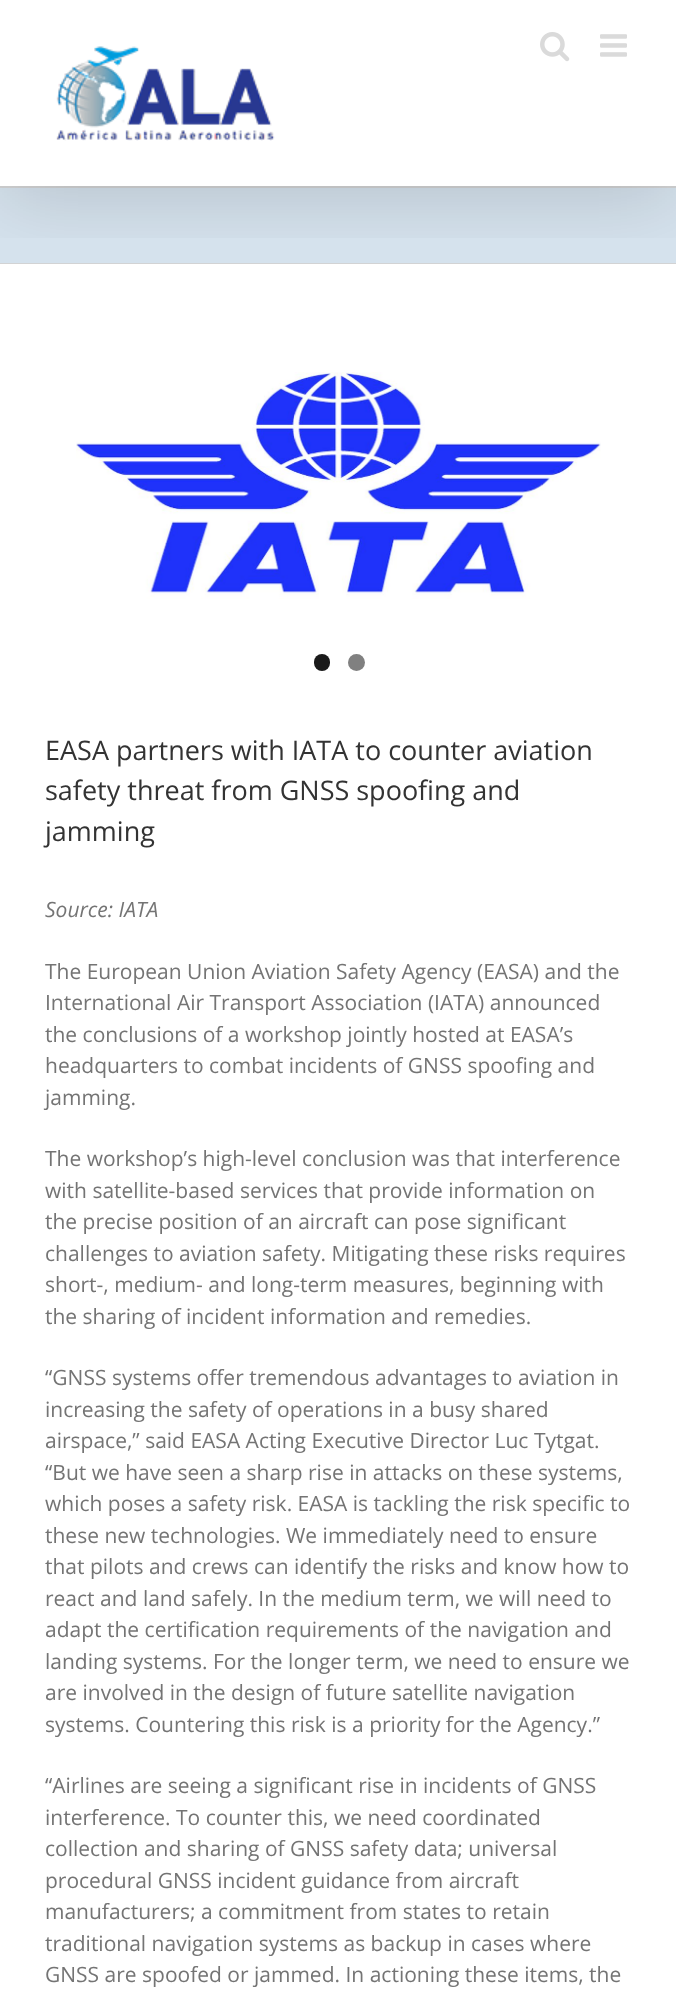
async function draw(canvas) {
  canvas.width = 676
  canvas.height = 2002
  const ctx = canvas.getContext('2d')
  ctx.miterLimit = 4
  ctx.fontKerning = 'normal'
  async function loadImage(src) {
    const img = new Image()
    img.src = src
    await img.decode()
    return img
  }

  ctx.fillStyle = '#fff'
  ctx.fillRect(0, 0, 676, 2002)
  ctx.fillStyle = '#d5e2ed'
  ctx.fillRect(0, 188, 676, 75)
  ctx.fillStyle = '#d2d3d4'
  ctx.fillRect(0, 186, 676, 2)
  ctx.fillRect(0, 263, 676, 1)
  ctx.save()
  ctx.beginPath()
  ctx.rect(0, 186, 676, 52)
  ctx.clip()
  ctx.fillStyle = '#00000024'
  ctx.filter = 'blur(37.5px)'
  ctx.beginPath()
  ctx.rect(3, 18, 671, 180)
  ctx.fill()
  ctx.filter = 'none'
  ctx.restore()
  ctx.drawImage(await loadImage('image0.png'), 56, 46, 219, 95)
  ctx.drawImage(await loadImage('image1.png'), 540, 32, 30, 30)
  ctx.drawImage(await loadImage('image2.png'), 600, 34, 27, 23)
  ctx.drawImage(await loadImage('image3.png'), 76, 372, 525, 227)
  ctx.fillStyle = '#1a1a1a'
  ctx.beginPath()
  ctx.roundRect(314, 654, 16, 17, 8)
  ctx.fill()
  ctx.fillStyle = '#808080'
  ctx.beginPath()
  ctx.arc(356.5, 662.5, 8.5, 0, 2 * Math.PI)
  ctx.fill()
  ctx.font = '27px Open Sans'
  ctx.fillStyle = '#333'
  ctx.fillText('EASA partners with IATA to counter aviation', 45, 760)
  ctx.fillText('safety threat from GNSS spoofing and', 45, 800)
  ctx.fillText('jamming', 45, 841)
  ctx.font = 'italic 21px Open Sans'
  ctx.fillStyle = '#747474'
  ctx.fillText('Source: IATA', 45, 917)
  ctx.font = '21px Open Sans'
  ctx.fillText('The European Union Aviation Safety Agency (EASA) and the', 45, 979)
  ctx.fillText('International Air Transport Association (IATA) announced', 45, 1010)
  ctx.fillText('the conclusions of a workshop jointly hosted at EASA’s', 45, 1042)
  ctx.fillText('headquarters to combat incidents of GNSS spoofing and', 45, 1073)
  ctx.fillText('jamming.', 45, 1105)
  ctx.fillText('The workshop’s high-level conclusion was that interference', 45, 1166)
  ctx.fillText('with satellite-based services that provide information on', 45, 1198)
  ctx.fillText('the precise position of an aircraft can pose significant', 45, 1229)
  ctx.fillText('challenges to aviation safety. Mitigating these risks requires', 45, 1261)
  ctx.fillText('short-, medium- and long-term measures, beginning with', 45, 1292)
  ctx.fillText('the sharing of incident information and remedies.', 45, 1324)
  ctx.fillText('“GNSS systems offer tremendous advantages to aviation in', 45, 1385)
  ctx.fillText('increasing the safety of operations in a busy shared', 45, 1417)
  ctx.fillText('airspace,” said EASA Acting Executive Director Luc Tytgat.', 45, 1448)
  ctx.fillText('“But we have seen a sharp rise in attacks on these systems,', 45, 1480)
  ctx.fillText('which poses a safety risk. EASA is tackling the risk specific to', 45, 1511)
  ctx.fillText('these new technologies. We immediately need to ensure', 45, 1543)
  ctx.fillText('that pilots and crews can identify the risks and know how to', 45, 1574)
  ctx.fillText('react and land safely. In the medium term, we will need to', 45, 1606)
  ctx.fillText('adapt the certification requirements of the navigation and', 45, 1637)
  ctx.fillText('landing systems. For the longer term, we need to ensure we', 45, 1669)
  ctx.fillText('are involved in the design of future satellite navigation', 45, 1700)
  ctx.fillText('systems. Countering this risk is a priority for the Agency.”', 45, 1732)
  ctx.fillText('“Airlines are seeing a significant rise in incidents of GNSS', 45, 1793)
  ctx.fillText('interference. To counter this, we need coordinated', 45, 1825)
  ctx.fillText('collection and sharing of GNSS safety data; universal', 45, 1856)
  ctx.fillText('procedural GNSS incident guidance from aircraft', 45, 1888)
  ctx.fillText('manufacturers; a commitment from states to retain', 45, 1919)
  ctx.fillText('traditional navigation systems as backup in cases where', 45, 1951)
  ctx.fillText('GNSS are spoofed or jammed. In actioning these items, the', 45, 1982)
}

draw(document.querySelector('canvas'))
